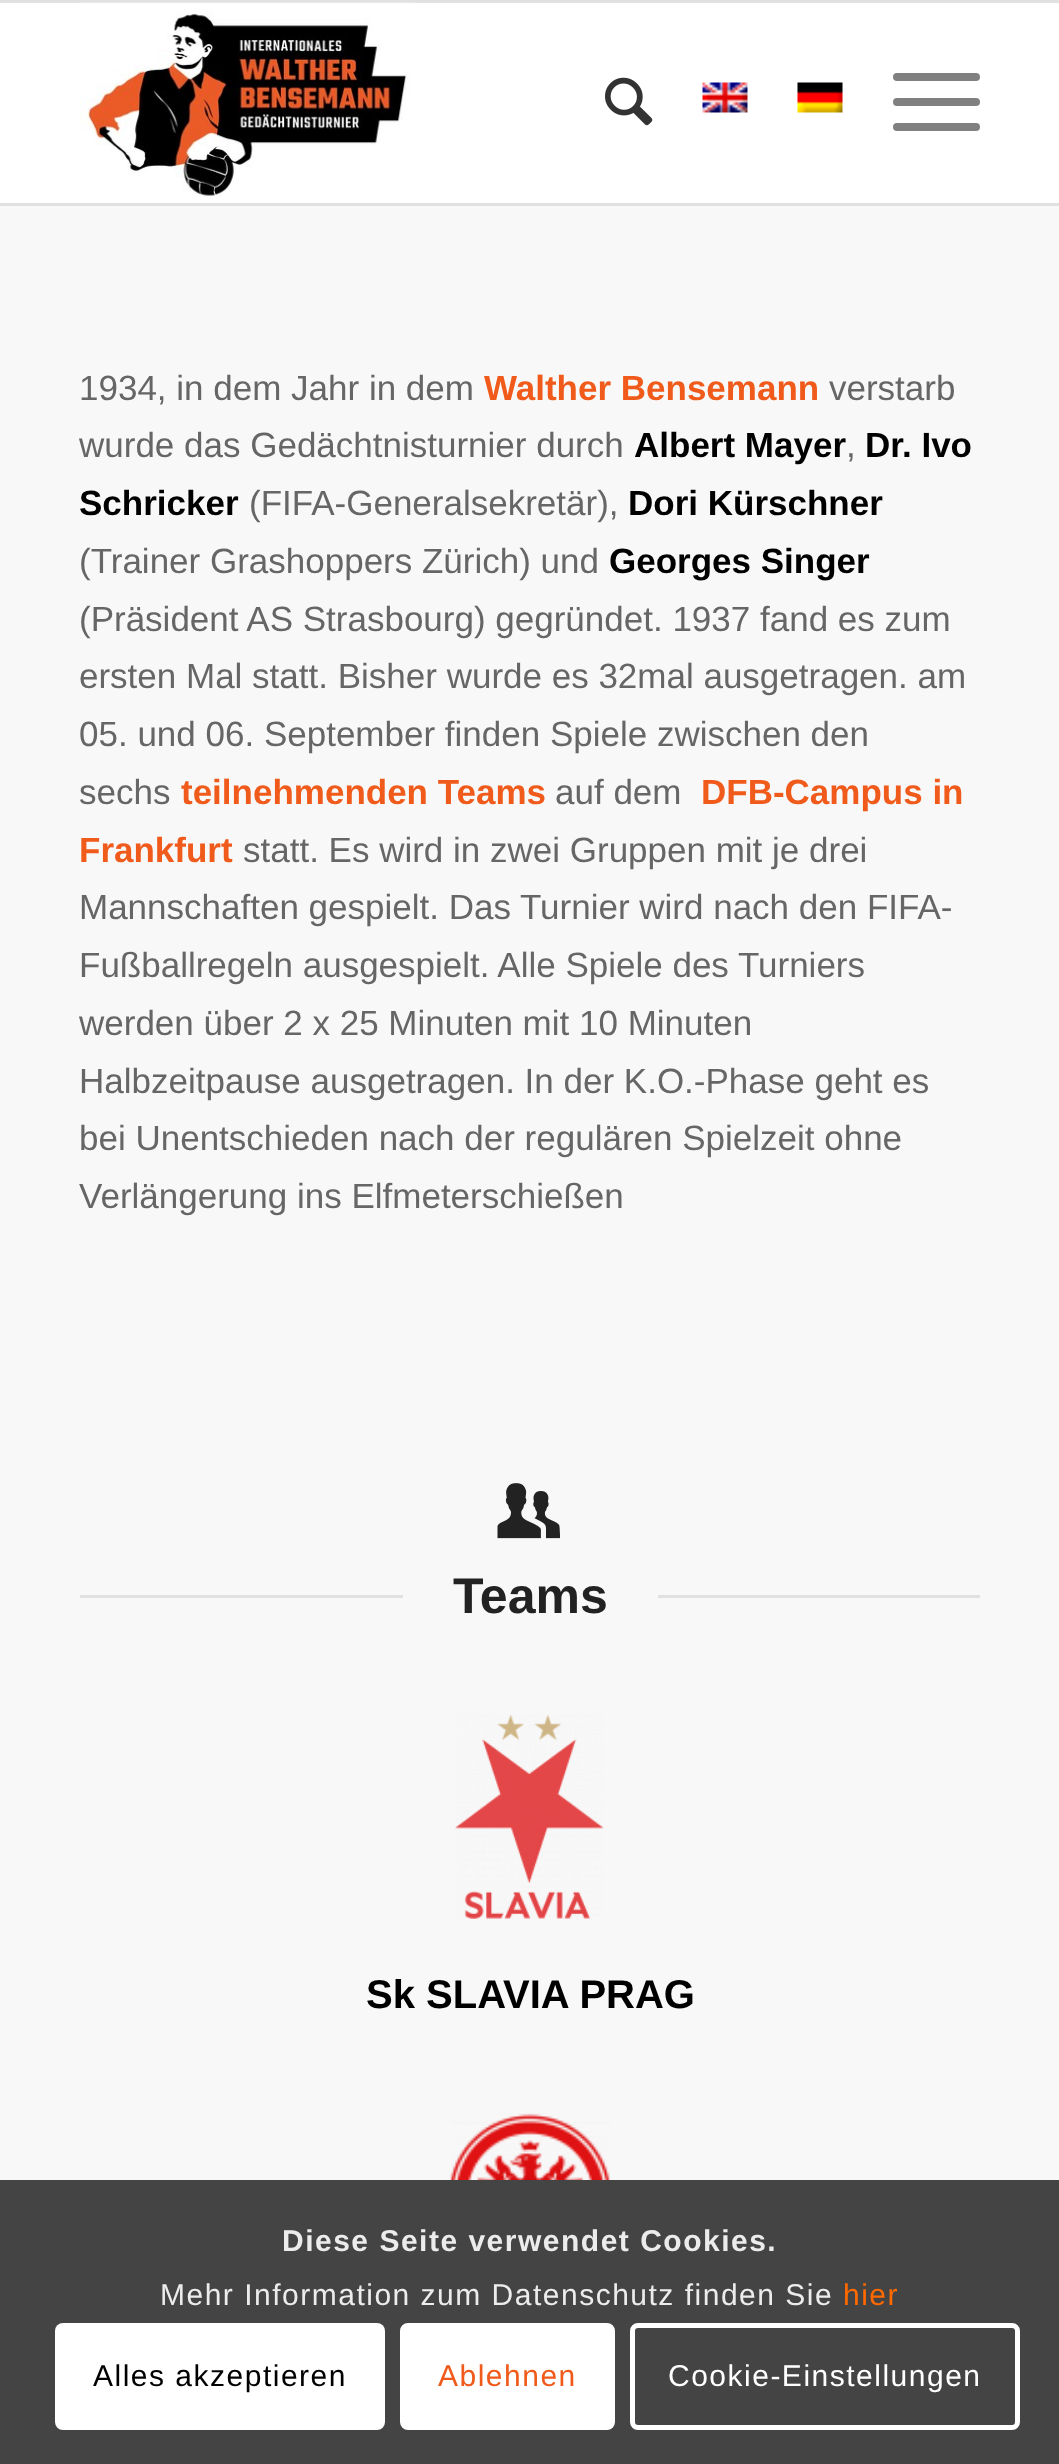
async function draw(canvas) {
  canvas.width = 1059
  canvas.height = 2464
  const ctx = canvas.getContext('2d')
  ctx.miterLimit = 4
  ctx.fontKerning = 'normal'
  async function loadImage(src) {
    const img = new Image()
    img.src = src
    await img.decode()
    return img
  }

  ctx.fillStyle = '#f8f8f8'
  ctx.fillRect(0, 0, 1059, 2464)
  ctx.fillStyle = '#e1e1e1'
  ctx.fillRect(0, 0, 1059, 3)
  ctx.fillRect(0, 203, 1059, 3)
  ctx.fillStyle = '#fff'
  ctx.fillRect(0, 3, 1059, 200)
  ctx.drawImage(await loadImage('image0.png'), 80, 2, 335, 195)
  ctx.drawImage(await loadImage('image1.png'), 605, 77, 48, 49)
  ctx.drawImage(await loadImage('image2.png'), 702, 82, 46, 31)
  ctx.drawImage(await loadImage('image3.png'), 797, 82, 46, 31)
  ctx.fillStyle = '#808080'
  ctx.beginPath()
  ctx.roundRect(893, 98, 87, 8, 4)
  ctx.fill()
  ctx.beginPath()
  ctx.roundRect(893, 73, 87, 8, 4)
  ctx.fill()
  ctx.beginPath()
  ctx.roundRect(893, 123, 87, 8, 4)
  ctx.fill()
  ctx.font = '35px Liberation Sans'
  ctx.fillStyle = '#666'
  ctx.fillText('1934, in dem Jahr in dem', 79, 400)
  ctx.font = 'bold 35px Liberation Sans'
  ctx.fillStyle = '#f05a1a'
  ctx.fillText('Walther Bensemann', 484, 400)
  ctx.font = '35px Liberation Sans'
  ctx.fillStyle = '#666'
  ctx.fillText('verstarb', 829, 400)
  ctx.fillText('wurde das Gedächtnisturnier durch', 79, 457)
  ctx.font = 'bold 35px Liberation Sans'
  ctx.fillStyle = '#000'
  ctx.fillText('Albert Mayer', 634, 457)
  ctx.font = '35px Liberation Sans'
  ctx.fillStyle = '#666'
  ctx.fillText(',', 846, 457)
  ctx.font = 'bold 35px Liberation Sans'
  ctx.fillStyle = '#000'
  ctx.fillText('Dr. Ivo', 865, 457)
  ctx.fillText('Schricker', 79, 515)
  ctx.font = '35px Liberation Sans'
  ctx.fillStyle = '#666'
  ctx.fillText('(FIFA-Generalsekretär),', 249, 515)
  ctx.font = 'bold 35px Liberation Sans'
  ctx.fillStyle = '#000'
  ctx.fillText('Dori Kürschner', 628, 515)
  ctx.font = '35px Liberation Sans'
  ctx.fillStyle = '#666'
  ctx.fillText('(Trainer Grashoppers Zürich) und', 79, 573)
  ctx.font = 'bold 35px Liberation Sans'
  ctx.fillStyle = '#000'
  ctx.fillText('Georges Singer', 609, 573)
  ctx.font = '35px Liberation Sans'
  ctx.fillStyle = '#666'
  ctx.fillText('(Präsident AS Strasbourg) gegründet. 1937 fand es zum', 79, 631)
  ctx.fillText('ersten Mal statt. Bisher wurde es 32mal ausgetragen. am', 79, 688)
  ctx.fillText('05. und 06. September finden Spiele zwischen den', 79, 746)
  ctx.fillText('sechs', 79, 804)
  ctx.font = 'bold 35px Liberation Sans'
  ctx.fillStyle = '#f05a1a'
  ctx.fillText('teilnehmenden Teams', 181, 804)
  ctx.font = '35px Liberation Sans'
  ctx.fillStyle = '#666'
  ctx.fillText('auf dem', 555, 804)
  ctx.font = 'bold 35px Liberation Sans'
  ctx.fillStyle = '#f05a1a'
  ctx.fillText('DFB-Campus in', 701, 804)
  ctx.fillText('Frankfurt', 79, 862)
  ctx.font = '35px Liberation Sans'
  ctx.fillStyle = '#666'
  ctx.fillText('statt. Es wird in zwei Gruppen mit je drei', 243, 862)
  ctx.fillText('Mannschaften gespielt. Das Turnier wird nach den FIFA-', 79, 919)
  ctx.fillText('Fußballregeln ausgespielt. Alle Spiele des Turniers', 79, 977)
  ctx.fillText('werden über 2 x 25 Minuten mit 10 Minuten', 79, 1035)
  ctx.fillText('Halbzeitpause ausgetragen. In der K.O.-Phase geht es', 79, 1093)
  ctx.fillText('bei Unentschieden nach der regulären Spielzeit ohne', 79, 1150)
  ctx.fillText('Verlängerung ins Elfmeterschießen', 79, 1208)
  ctx.drawImage(await loadImage('image4.png'), 497, 1483, 63, 56)
  ctx.fillStyle = '#e1e1e1'
  ctx.fillRect(80, 1595, 323, 3)
  ctx.font = 'bold 50px Liberation Sans'
  ctx.fillStyle = '#222'
  ctx.fillText('Teams', 453, 1613)
  ctx.fillStyle = '#e1e1e1'
  ctx.fillRect(658, 1595, 322, 3)
  ctx.drawImage(await loadImage('image5.png'), 455, 1714, 149, 205)
  ctx.font = 'bold 40px Liberation Sans'
  ctx.fillStyle = '#000'
  ctx.fillText('Sk SLAVIA PRAG', 366, 2008)
  ctx.drawImage(await loadImage('image6.png'), 450, 2113, 161, 67)
  ctx.fillStyle = '#444'
  ctx.fillRect(0, 2180, 1059, 284)
  ctx.letterSpacing = '1.5px'
  ctx.font = 'bold 30px Liberation Sans'
  ctx.fillStyle = '#ececec'
  ctx.fillText('Diese Seite verwendet Cookies.', 282, 2251)
  ctx.font = '30px Liberation Sans'
  ctx.fillText('Mehr Information zum Datenschutz finden Sie', 160, 2305)
  ctx.fillStyle = '#ff6900'
  ctx.fillText('hier', 843, 2305)
  ctx.fillStyle = '#fff'
  ctx.beginPath()
  ctx.roundRect(55, 2323, 330, 107, 8)
  ctx.fill()
  ctx.fillStyle = '#000'
  ctx.fillText('Alles akzeptieren', 93, 2386)
  ctx.fillStyle = '#fff'
  ctx.beginPath()
  ctx.roundRect(402.5, 2325.5, 210, 102, 5.5)
  ctx.fill()
  ctx.strokeStyle = '#fff'
  ctx.lineWidth = 5
  ctx.stroke()
  ctx.fillStyle = '#f05a1a'
  ctx.fillText('Ablehnen', 438, 2386)
  ctx.beginPath()
  ctx.roundRect(632.5, 2325.5, 385, 102, 5.5)
  ctx.stroke()
  ctx.fillStyle = '#fff'
  ctx.fillText('Cookie-Einstellungen', 668, 2386)
}

draw(document.querySelector('canvas'))
